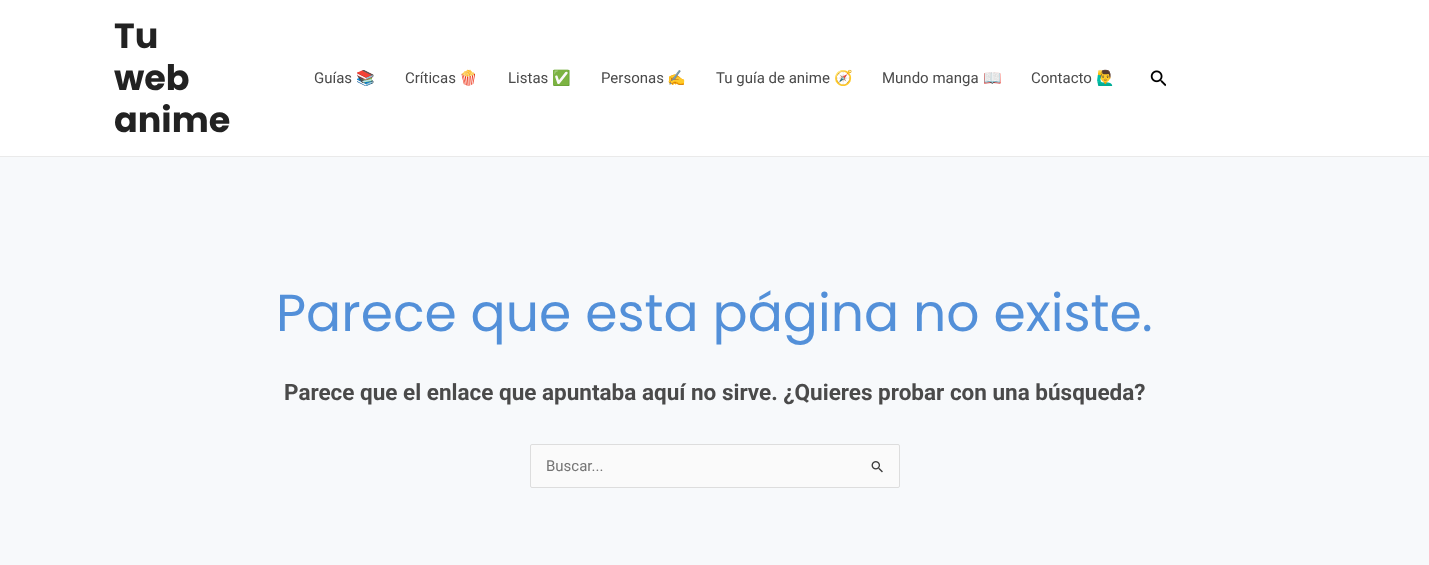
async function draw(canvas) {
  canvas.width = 1429
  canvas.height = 565
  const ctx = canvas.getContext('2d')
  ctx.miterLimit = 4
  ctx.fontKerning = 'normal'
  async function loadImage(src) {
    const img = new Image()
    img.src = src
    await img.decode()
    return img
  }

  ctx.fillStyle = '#f7f9fb'
  ctx.fillRect(0, 0, 1429, 565)
  ctx.fillStyle = '#fff'
  ctx.fillRect(0, 0, 1429, 156)
  ctx.fillStyle = '#eaeaea'
  ctx.fillRect(0, 156, 1429, 1)
  ctx.font = 'bold 35px Poppins'
  ctx.fillStyle = '#222'
  ctx.fillText('Tu', 114, 48)
  ctx.fillText('web', 114, 90)
  ctx.fillText('anime', 114, 132)
  ctx.font = '15px Roboto'
  ctx.fillStyle = '#4a4a4a'
  ctx.fillText('Guías', 314, 83)
  ctx.font = '15px Noto Color Emoji'
  ctx.fillText('📚', 356, 83)
  ctx.font = '15px Roboto'
  ctx.fillText('Críticas', 405, 83)
  ctx.font = '15px Noto Color Emoji'
  ctx.fillText('🍿', 459, 83)
  ctx.font = '15px Roboto'
  ctx.fillText('Listas', 508, 83)
  ctx.font = '15px Noto Color Emoji'
  ctx.fillText('✅', 552, 83)
  ctx.font = '15px Roboto'
  ctx.fillText('Personas', 601, 83)
  ctx.font = '15px Noto Color Emoji'
  ctx.fillText('✍️', 667, 83)
  ctx.font = '15px Roboto'
  ctx.fillText('Tu guía de anime', 716, 83)
  ctx.font = '15px Noto Color Emoji'
  ctx.fillText('🧭', 834, 83)
  ctx.font = '15px Roboto'
  ctx.fillText('Mundo manga', 882, 83)
  ctx.font = '15px Noto Color Emoji'
  ctx.fillText('📖', 983, 83)
  ctx.font = '15px Roboto'
  ctx.fillText('Contacto', 1031, 83)
  ctx.font = '15px Noto Color Emoji'
  ctx.fillText('🙋‍♂️', 1096, 83)
  ctx.drawImage(await loadImage('image0.png'), 1150, 70, 16, 17)
  ctx.font = '52px Poppins'
  ctx.fillStyle = '#5390d9'
  ctx.fillText('Parece que esta página no existe.', 276, 331)
  ctx.font = 'bold 22.5px Roboto'
  ctx.fillStyle = '#4a4a4a'
  ctx.fillText('Parece que el enlace que apuntaba aquí no sirve. ¿Quieres probar con una búsqueda?', 284, 400)
  ctx.fillStyle = '#fafafa'
  ctx.beginPath()
  ctx.roundRect(530.5, 444.5, 369, 43, 1.5)
  ctx.fill()
  ctx.strokeStyle = '#ddd'
  ctx.stroke()
  ctx.font = '15px Roboto'
  ctx.fillStyle = '#757575'
  ctx.fillText('Buscar...', 546, 471)
  ctx.drawImage(await loadImage('image1.png'), 871, 461, 12, 12)
}

draw(document.querySelector('canvas'))
